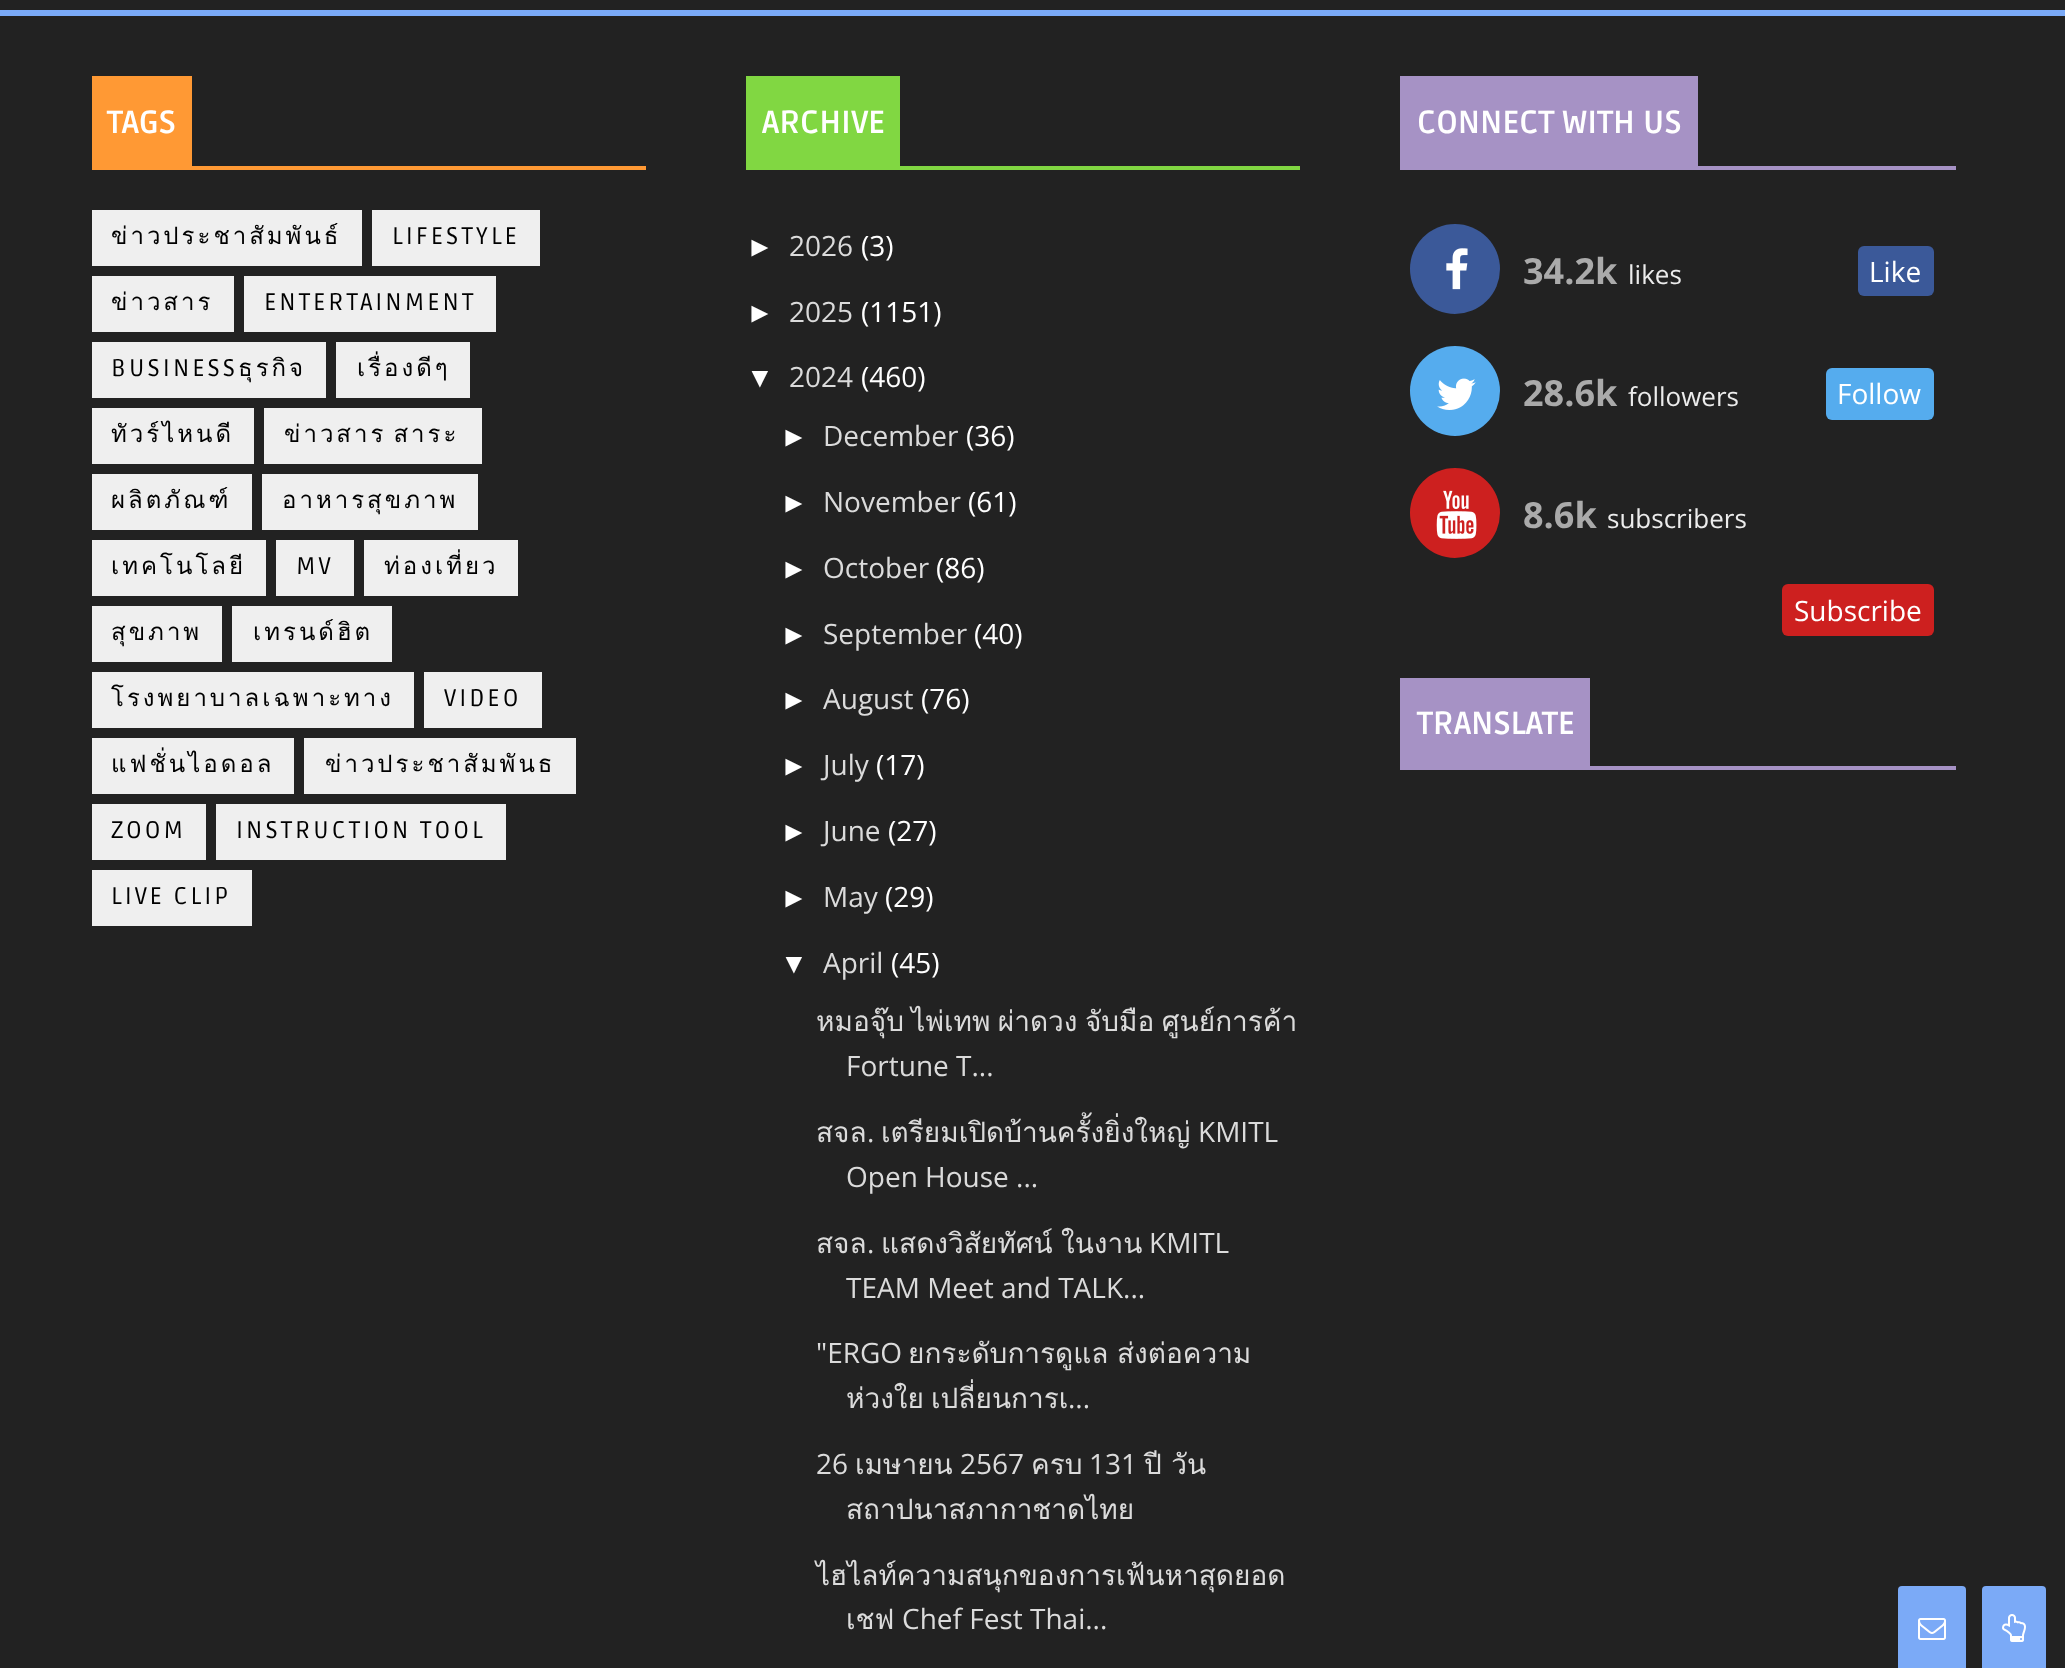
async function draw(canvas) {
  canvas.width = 2065
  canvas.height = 1668
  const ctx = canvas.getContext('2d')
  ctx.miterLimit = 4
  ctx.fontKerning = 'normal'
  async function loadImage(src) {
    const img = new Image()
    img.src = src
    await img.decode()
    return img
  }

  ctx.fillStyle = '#222'
  ctx.fillRect(0, 0, 2065, 1668)
  ctx.fillStyle = '#7baaf7'
  ctx.fillRect(0, 10, 2065, 6)
  ctx.fillStyle = '#ff9934'
  ctx.fillRect(192, 166, 454, 4)
  ctx.fillRect(92, 76, 100, 94)
  ctx.font = 'bold 32px Ruda'
  ctx.fillStyle = '#fff'
  ctx.fillText('TAGS', 107, 133)
  ctx.fillStyle = '#efefef'
  ctx.fillRect(92, 210, 270, 56)
  ctx.letterSpacing = '3px'
  ctx.font = '24px Loma'
  ctx.fillStyle = '#000'
  ctx.fillText('ข่าวประชาสัมพันธ์', 111, 244)
  ctx.fillStyle = '#efefef'
  ctx.fillRect(372, 210, 168, 56)
  ctx.font = '24px Ruda'
  ctx.fillStyle = '#000'
  ctx.fillText('LIFESTYLE', 392, 244)
  ctx.fillStyle = '#efefef'
  ctx.fillRect(92, 276, 142, 56)
  ctx.font = '24px Loma'
  ctx.fillStyle = '#000'
  ctx.fillText('ข่าวสาร', 111, 310)
  ctx.fillStyle = '#efefef'
  ctx.fillRect(244, 276, 252, 56)
  ctx.font = '24px Ruda'
  ctx.fillStyle = '#000'
  ctx.fillText('ENTERTAINMENT', 264, 310)
  ctx.fillStyle = '#efefef'
  ctx.fillRect(92, 342, 234, 56)
  ctx.fillStyle = '#000'
  ctx.fillText('BUSINESS', 111, 376)
  ctx.font = '24px Loma'
  ctx.fillText('ธุรกิจ', 238, 376)
  ctx.fillStyle = '#efefef'
  ctx.fillRect(336, 342, 134, 56)
  ctx.fillStyle = '#000'
  ctx.fillText('เรื่องดีๆ', 357, 376)
  ctx.fillStyle = '#efefef'
  ctx.fillRect(92, 408, 162, 56)
  ctx.fillStyle = '#000'
  ctx.fillText('ทัวร์ไหนดี', 111, 442)
  ctx.fillStyle = '#efefef'
  ctx.fillRect(264, 408, 218, 56)
  ctx.wordSpacing = '-4px'
  ctx.fillStyle = '#000'
  ctx.fillText('ข่าวสาร สาระ', 284, 442)
  ctx.fillStyle = '#efefef'
  ctx.fillRect(92, 474, 160, 56)
  ctx.wordSpacing = '0px'
  ctx.fillStyle = '#000'
  ctx.fillText('ผลิตภัณฑ์', 111, 508)
  ctx.fillStyle = '#efefef'
  ctx.fillRect(262, 474, 216, 56)
  ctx.fillStyle = '#000'
  ctx.fillText('อาหารสุขภาพ', 282, 508)
  ctx.fillStyle = '#efefef'
  ctx.fillRect(92, 540, 174, 56)
  ctx.fillStyle = '#000'
  ctx.fillText('เทคโนโลยี', 111, 574)
  ctx.fillStyle = '#efefef'
  ctx.fillRect(276, 540, 78, 56)
  ctx.font = '24px Ruda'
  ctx.fillStyle = '#000'
  ctx.fillText('MV', 296, 574)
  ctx.fillStyle = '#efefef'
  ctx.fillRect(364, 540, 154, 56)
  ctx.font = '24px Loma'
  ctx.fillStyle = '#000'
  ctx.fillText('ท่องเที่ยว', 384, 574)
  ctx.fillStyle = '#efefef'
  ctx.fillRect(92, 606, 130, 56)
  ctx.fillStyle = '#000'
  ctx.fillText('สุขภาพ', 111, 640)
  ctx.fillStyle = '#efefef'
  ctx.fillRect(232, 606, 160, 56)
  ctx.fillStyle = '#000'
  ctx.fillText('เทรนด์ฮิต', 253, 640)
  ctx.fillStyle = '#efefef'
  ctx.fillRect(92, 672, 322, 56)
  ctx.fillStyle = '#000'
  ctx.fillText('โรงพยาบาลเฉพาะทาง', 111, 706)
  ctx.fillStyle = '#efefef'
  ctx.fillRect(424, 672, 118, 56)
  ctx.font = '24px Ruda'
  ctx.fillStyle = '#000'
  ctx.fillText('VIDEO', 444, 706)
  ctx.fillStyle = '#efefef'
  ctx.fillRect(92, 738, 202, 56)
  ctx.font = '24px Loma'
  ctx.fillStyle = '#000'
  ctx.fillText('แฟชั่นไอดอล', 111, 772)
  ctx.fillStyle = '#efefef'
  ctx.fillRect(304, 738, 272, 56)
  ctx.fillStyle = '#000'
  ctx.fillText('ข่าวประชาสัมพันธ', 325, 772)
  ctx.fillStyle = '#efefef'
  ctx.fillRect(92, 804, 114, 56)
  ctx.font = '24px Ruda'
  ctx.fillStyle = '#000'
  ctx.fillText('ZOOM', 111, 838)
  ctx.fillStyle = '#efefef'
  ctx.fillRect(216, 804, 290, 56)
  ctx.fillStyle = '#000'
  ctx.fillText('INSTRUCTION TOOL', 236, 838)
  ctx.fillStyle = '#efefef'
  ctx.fillRect(92, 870, 160, 56)
  ctx.fillStyle = '#000'
  ctx.fillText('LIVE CLIP', 111, 904)
  ctx.fillStyle = '#81d742'
  ctx.fillRect(900, 166, 400, 4)
  ctx.fillRect(746, 76, 154, 94)
  ctx.letterSpacing = '0px'
  ctx.font = 'bold 32px Ruda'
  ctx.fillStyle = '#fff'
  ctx.fillText('ARCHIVE', 762, 133)
  ctx.font = '28px Liberation Sans'
  ctx.fillText('►', 746, 256)
  ctx.font = '28px Open Sans'
  ctx.fillStyle = '#dbdbdb'
  ctx.fillText('2026', 789, 256)
  ctx.fillStyle = '#fff'
  ctx.fillText('(3)', 861, 256)
  ctx.font = '28px Liberation Sans'
  ctx.fillText('►', 746, 322)
  ctx.font = '28px Open Sans'
  ctx.fillStyle = '#dbdbdb'
  ctx.fillText('2025', 789, 322)
  ctx.fillStyle = '#fff'
  ctx.fillText('(1151)', 861, 322)
  ctx.font = '28px Liberation Sans'
  ctx.fillText('▼', 746, 387)
  ctx.font = '28px Open Sans'
  ctx.fillStyle = '#dbdbdb'
  ctx.fillText('2024', 789, 387)
  ctx.fillStyle = '#fff'
  ctx.fillText('(460)', 861, 387)
  ctx.font = '28px Liberation Sans'
  ctx.fillText('►', 780, 446)
  ctx.font = '28px Open Sans'
  ctx.fillStyle = '#dbdbdb'
  ctx.fillText('December', 823, 446)
  ctx.fillStyle = '#fff'
  ctx.fillText('(36)', 966, 446)
  ctx.font = '28px Liberation Sans'
  ctx.fillText('►', 780, 512)
  ctx.font = '28px Open Sans'
  ctx.fillStyle = '#dbdbdb'
  ctx.fillText('November', 823, 512)
  ctx.fillStyle = '#fff'
  ctx.fillText('(61)', 968, 512)
  ctx.font = '28px Liberation Sans'
  ctx.fillText('►', 780, 578)
  ctx.font = '28px Open Sans'
  ctx.fillStyle = '#dbdbdb'
  ctx.fillText('October', 823, 578)
  ctx.fillStyle = '#fff'
  ctx.fillText('(86)', 936, 578)
  ctx.font = '28px Liberation Sans'
  ctx.fillText('►', 780, 644)
  ctx.font = '28px Open Sans'
  ctx.fillStyle = '#dbdbdb'
  ctx.fillText('September', 823, 644)
  ctx.fillStyle = '#fff'
  ctx.fillText('(40)', 974, 644)
  ctx.font = '28px Liberation Sans'
  ctx.fillText('►', 780, 709)
  ctx.font = '28px Open Sans'
  ctx.fillStyle = '#dbdbdb'
  ctx.fillText('August', 823, 709)
  ctx.fillStyle = '#fff'
  ctx.fillText('(76)', 921, 709)
  ctx.font = '28px Liberation Sans'
  ctx.fillText('►', 780, 775)
  ctx.font = '28px Open Sans'
  ctx.fillStyle = '#dbdbdb'
  ctx.fillText('July', 823, 775)
  ctx.fillStyle = '#fff'
  ctx.fillText('(17)', 876, 775)
  ctx.font = '28px Liberation Sans'
  ctx.fillText('►', 780, 841)
  ctx.font = '28px Open Sans'
  ctx.fillStyle = '#dbdbdb'
  ctx.fillText('June', 823, 841)
  ctx.fillStyle = '#fff'
  ctx.fillText('(27)', 888, 841)
  ctx.font = '28px Liberation Sans'
  ctx.fillText('►', 780, 907)
  ctx.font = '28px Open Sans'
  ctx.fillStyle = '#dbdbdb'
  ctx.fillText('May', 823, 907)
  ctx.fillStyle = '#fff'
  ctx.fillText('(29)', 885, 907)
  ctx.font = '28px Liberation Sans'
  ctx.fillText('▼', 780, 973)
  ctx.font = '28px Open Sans'
  ctx.fillStyle = '#dbdbdb'
  ctx.fillText('April', 823, 973)
  ctx.fillStyle = '#fff'
  ctx.fillText('(45)', 891, 973)
  ctx.wordSpacing = '-2px'
  ctx.font = '28px Loma'
  ctx.fillStyle = '#dbdbdb'
  ctx.fillText('หมอจุ๊บ ไพ่เทพ ผ่าดวง จับมือ ศูนย์การค้า', 816, 1031)
  ctx.wordSpacing = '0px'
  ctx.font = '28px Open Sans'
  ctx.fillText('Fortune T...', 846, 1076)
  ctx.font = '28px Loma'
  ctx.fillText('สจล', 816, 1142)
  ctx.font = '28px Open Sans'
  ctx.fillText('.', 867, 1142)
  ctx.font = '28px Loma'
  ctx.fillText('เตรียมเปิดบ้านครั้งยิ่งใหญ่', 881, 1142)
  ctx.font = '28px Open Sans'
  ctx.fillText('KMITL', 1198, 1142)
  ctx.fillText('Open House ...', 846, 1187)
  ctx.font = '28px Loma'
  ctx.fillText('สจล', 816, 1253)
  ctx.font = '28px Open Sans'
  ctx.fillText('.', 867, 1253)
  ctx.wordSpacing = '-1px'
  ctx.font = '28px Loma'
  ctx.fillText('แสดงวิสัยทัศน์ ในงาน', 881, 1253)
  ctx.wordSpacing = '0px'
  ctx.font = '28px Open Sans'
  ctx.fillText('KMITL', 1149, 1253)
  ctx.fillText('TEAM Meet and TALK...', 846, 1298)
  ctx.fillText('"ERGO', 816, 1363)
  ctx.wordSpacing = '-1px'
  ctx.font = '28px Loma'
  ctx.fillText('ยกระดับการดูแล ส่งต่อความ', 908, 1363)
  ctx.wordSpacing = '0px'
  ctx.fillText('ห่วงใย', 846, 1408)
  ctx.fillText('เปลี่ยนการเ', 931, 1408)
  ctx.font = '28px Open Sans'
  ctx.fillText('...', 1068, 1408)
  ctx.fillText('26', 816, 1474)
  ctx.font = '28px Loma'
  ctx.fillText('เมษายน', 855, 1474)
  ctx.font = '28px Open Sans'
  ctx.fillText('2567', 960, 1474)
  ctx.font = '28px Loma'
  ctx.fillText('ครบ', 1031, 1474)
  ctx.font = '28px Open Sans'
  ctx.fillText('131', 1089, 1474)
  ctx.font = '28px Loma'
  ctx.fillText('ปี วัน', 1144, 1474)
  ctx.fillText('สถาปนาสภากาชาดไทย', 846, 1519)
  ctx.fillText('ไฮไลท์ความสนุกของการเฟ้นหาสุดยอด', 816, 1585)
  ctx.fillText('เชฟ', 846, 1629)
  ctx.font = '28px Open Sans'
  ctx.fillText('Chef Fest Thai...', 902, 1629)
  ctx.fillStyle = '#a692c5'
  ctx.fillRect(1698, 166, 258, 4)
  ctx.fillRect(1400, 76, 298, 94)
  ctx.font = 'bold 32px Ruda'
  ctx.fillStyle = '#fff'
  ctx.fillText('CONNECT WITH US', 1417, 133)
  ctx.fillStyle = '#3b5999'
  ctx.beginPath()
  ctx.arc(1455, 269, 45, 0, 2 * Math.PI)
  ctx.fill()
  ctx.drawImage(await loadImage('image0.png'), 1446, 248, 22, 42)
  ctx.font = 'bold 36px Open Sans'
  ctx.fillStyle = '#aaa'
  ctx.fillText('34.2k', 1523, 284)
  ctx.font = '26px Open Sans'
  ctx.fillStyle = '#ececec'
  ctx.fillText('likes', 1628, 284)
  ctx.fillStyle = '#3b5999'
  ctx.beginPath()
  ctx.roundRect(1858, 246, 76, 50, 6)
  ctx.fill()
  ctx.font = '28px Open Sans'
  ctx.fillStyle = '#fff'
  ctx.fillText('Like', 1869, 282)
  ctx.fillStyle = '#55acee'
  ctx.beginPath()
  ctx.arc(1455, 391, 45, 0, 2 * Math.PI)
  ctx.fill()
  ctx.drawImage(await loadImage('image1.png'), 1437, 378, 39, 32)
  ctx.font = 'bold 36px Open Sans'
  ctx.fillStyle = '#aaa'
  ctx.fillText('28.6k', 1523, 406)
  ctx.font = '26px Open Sans'
  ctx.fillStyle = '#ececec'
  ctx.fillText('followers', 1628, 406)
  ctx.fillStyle = '#55acee'
  ctx.beginPath()
  ctx.roundRect(1826, 368, 108, 52, 6)
  ctx.fill()
  ctx.font = '28px Open Sans'
  ctx.fillStyle = '#fff'
  ctx.fillText('Follow', 1837, 404)
  ctx.fillStyle = '#cd201f'
  ctx.beginPath()
  ctx.arc(1455, 513, 45, 0, 2 * Math.PI)
  ctx.fill()
  ctx.drawImage(await loadImage('image2.png'), 1436, 490, 41, 49)
  ctx.font = 'bold 36px Open Sans'
  ctx.fillStyle = '#aaa'
  ctx.fillText('8.6k', 1523, 528)
  ctx.font = '26px Open Sans'
  ctx.fillStyle = '#ececec'
  ctx.fillText('subscribers', 1607, 528)
  ctx.fillStyle = '#cd201f'
  ctx.beginPath()
  ctx.roundRect(1782, 584, 152, 52, 6)
  ctx.fill()
  ctx.font = '28px Open Sans'
  ctx.fillStyle = '#fff'
  ctx.fillText('Subscribe', 1794, 621)
  ctx.fillStyle = '#a692c5'
  ctx.fillRect(1590, 766, 366, 4)
  ctx.fillRect(1400, 678, 190, 92)
  ctx.font = 'bold 32px Ruda'
  ctx.fillStyle = '#fff'
  ctx.fillText('TRANSLATE', 1417, 734)
  ctx.fillStyle = '#7baaf7'
  ctx.beginPath()
  ctx.roundRect(1982, 1586, 64, 82, [4, 4, 0, 0])
  ctx.fill()
  ctx.drawImage(await loadImage('image3.png'), 2002, 1614, 24, 28)
  ctx.beginPath()
  ctx.roundRect(1898, 1586, 68, 82, [4, 4, 0, 0])
  ctx.fill()
  ctx.drawImage(await loadImage('image4.png'), 1918, 1618, 28, 22)
}

draw(document.querySelector('canvas'))
